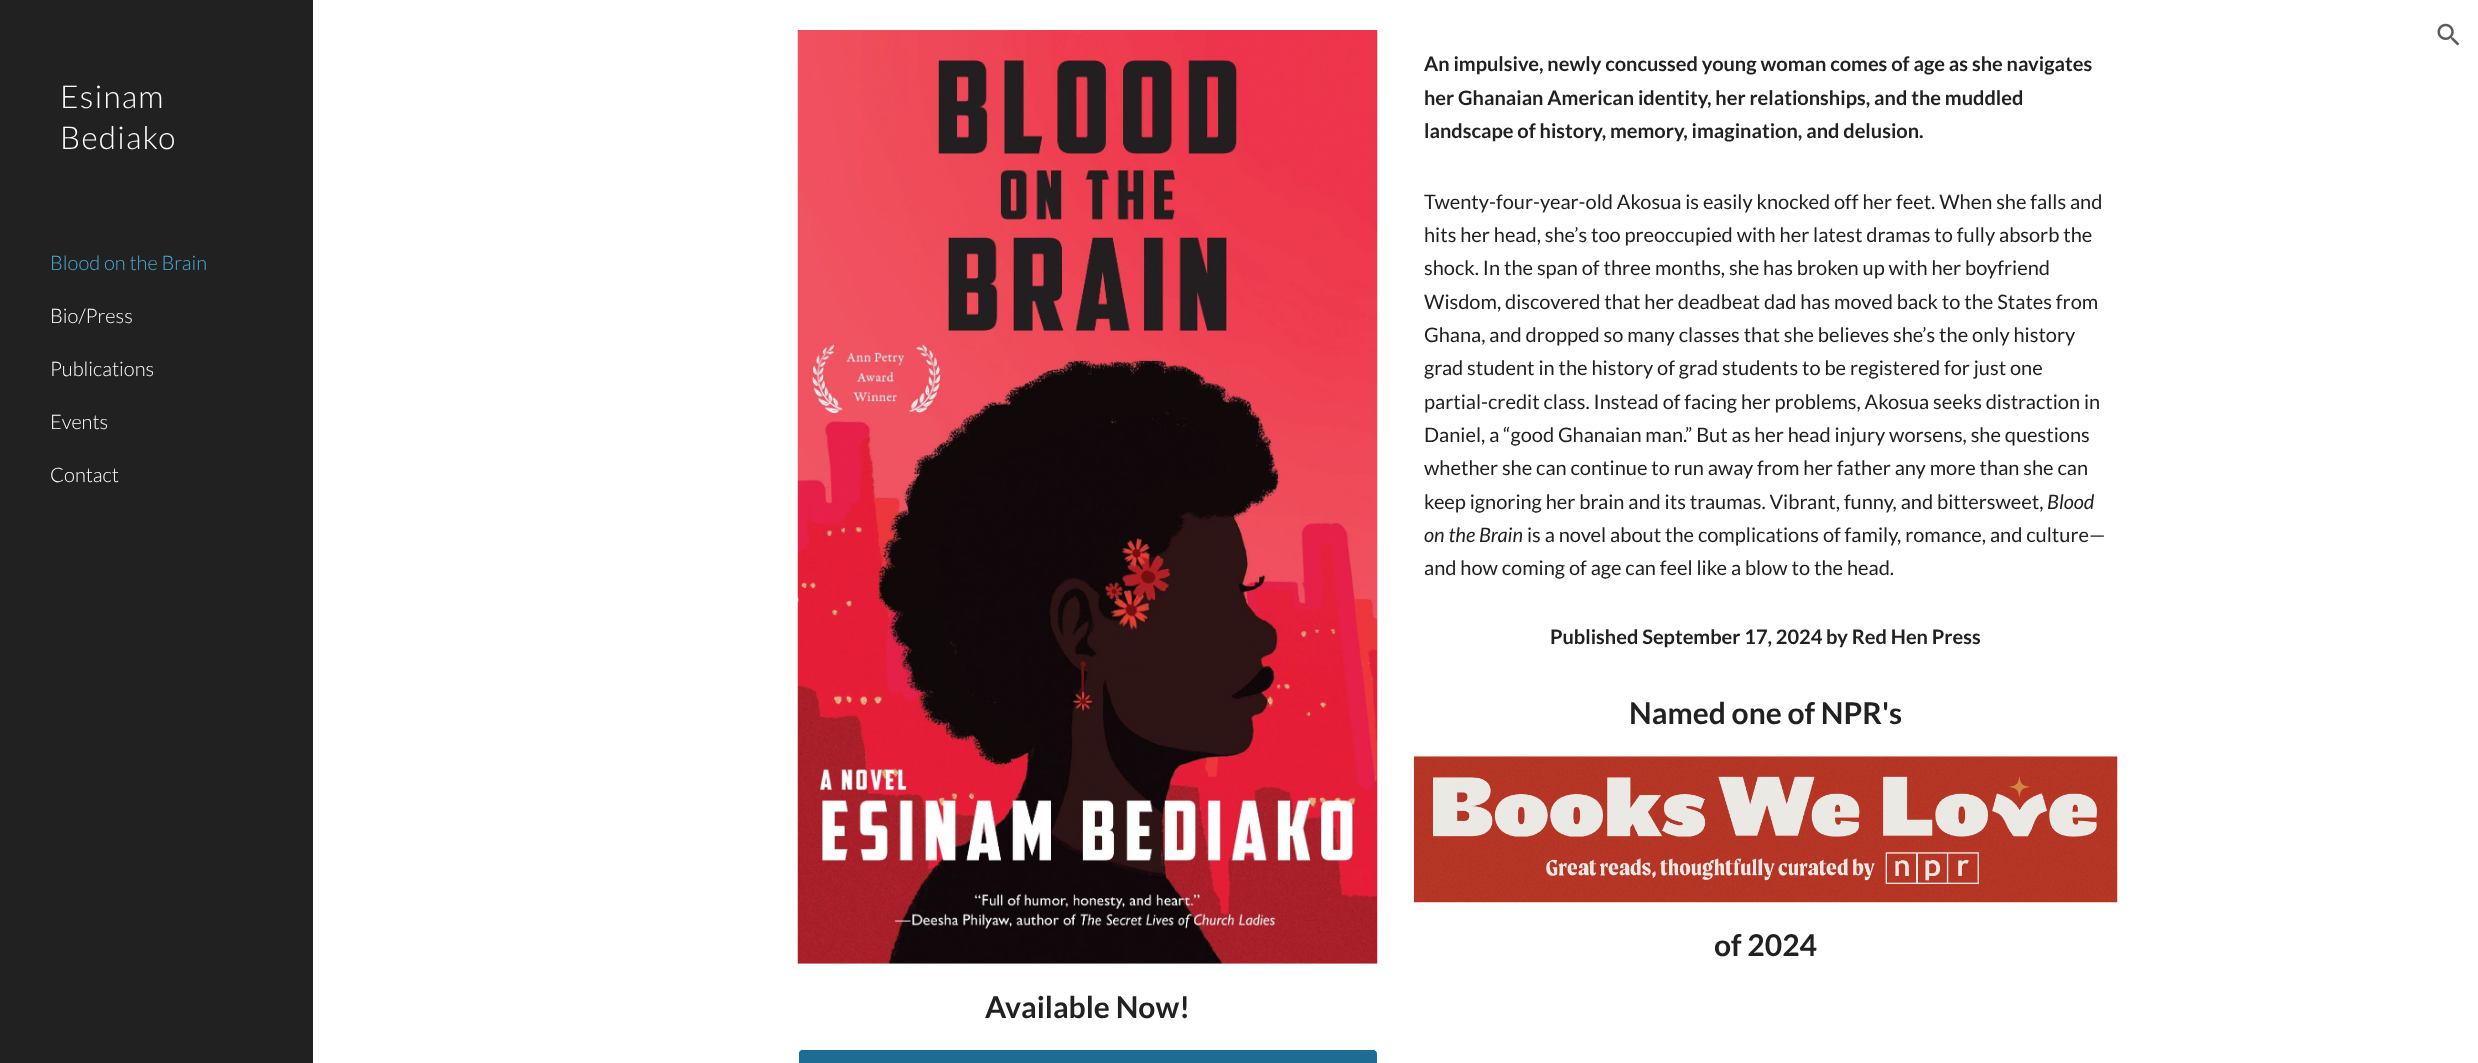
async function draw(canvas) {
  canvas.width = 2478
  canvas.height = 1063
  const ctx = canvas.getContext('2d')
  ctx.miterLimit = 4
  ctx.fontKerning = 'normal'
  async function loadImage(src) {
    const img = new Image()
    img.src = src
    await img.decode()
    return img
  }

  ctx.fillStyle = '#fff'
  ctx.fillRect(0, 0, 2478, 1063)
  ctx.drawImage(await loadImage('image0.png'), 2437, 23, 23, 23)
  ctx.fillStyle = '#212121'
  ctx.fillRect(0, 0, 313, 1063)
  ctx.letterSpacing = '1.25px'
  ctx.font = '300 31.5px Lato'
  ctx.fillStyle = '#fff'
  ctx.fillText('Esinam', 60, 108)
  ctx.fillText('Bediako', 60, 149)
  ctx.letterSpacing = '0px'
  ctx.font = '300 20px Lato'
  ctx.fillStyle = '#49aad4'
  ctx.fillText('Blood on the Brain', 50, 270)
  ctx.fillStyle = '#fff'
  ctx.fillText('Bio/Press', 50, 323)
  ctx.fillText('Publications', 50, 376)
  ctx.fillText('Events', 50, 429)
  ctx.fillText('Contact', 50, 482)
  ctx.font = 'bold 20px Lato'
  ctx.fillStyle = '#212121'
  ctx.fillText('An impulsive, newly concussed young woman comes of age as she navigates', 1424, 71)
  ctx.fillText('her Ghanaian American identity, her relationships, and the muddled', 1424, 105)
  ctx.fillText('landscape of history, memory, imagination, and delusion.', 1424, 138)
  ctx.font = '20px Lato'
  ctx.fillText('Twenty-four-year-old Akosua is easily knocked off her feet. When she falls and', 1424, 209)
  ctx.fillText('hits her head, she’s too preoccupied with her latest dramas to fully absorb the', 1424, 242)
  ctx.fillText('shock. In the span of three months, she has broken up with her boyfriend', 1424, 275)
  ctx.fillText('Wisdom, discovered that her deadbeat dad has moved back to the States from', 1424, 309)
  ctx.fillText('Ghana, and dropped so many classes that she believes she’s the only history', 1424, 342)
  ctx.fillText('grad student in the history of grad students to be registered for just one', 1424, 375)
  ctx.fillText('partial-credit class. Instead of facing her problems, Akosua seeks distraction in', 1424, 409)
  ctx.fillText('Daniel, a “good Ghanaian man.” But as her head injury worsens, she questions', 1424, 442)
  ctx.fillText('whether she can continue to run away from her father any more than she can', 1424, 475)
  ctx.fillText('keep ignoring her brain and its traumas. Vibrant, funny, and bittersweet,', 1424, 509)
  ctx.font = 'italic 20px Lato'
  ctx.fillText('Blood', 2047, 509)
  ctx.fillText('on the Brain', 1424, 542)
  ctx.font = '20px Lato'
  ctx.fillText('is a novel about the complications of family, romance, and culture—', 1527, 542)
  ctx.fillText('and how coming of age can feel like a blow to the head.', 1424, 575)
  ctx.font = 'bold 20px Lato'
  ctx.fillText('Published September 17, 2024 by Red Hen Press', 1550, 644)
  ctx.font = 'bold 30px Lato'
  ctx.fillText('Named one of NPR\'s', 1629, 724)
  ctx.drawImage(await loadImage('image1.png'), 1413, 756, 705, 147)
  ctx.fillText('of 2024', 1714, 956)
  ctx.drawImage(await loadImage('image2.png'), 797, 30, 581, 934)
  ctx.fillText('Available Now!', 985, 1018)
  ctx.fillStyle = '#1e6c93'
  ctx.beginPath()
  ctx.roundRect(798.5, 1049.5, 579, 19, 4.5)
  ctx.fill()
  ctx.strokeStyle = '#fff'
  ctx.stroke()
  ctx.beginPath()
  ctx.roundRect(799, 1050, 577, 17, 4)
  ctx.fill()
}

draw(document.querySelector('canvas'))
